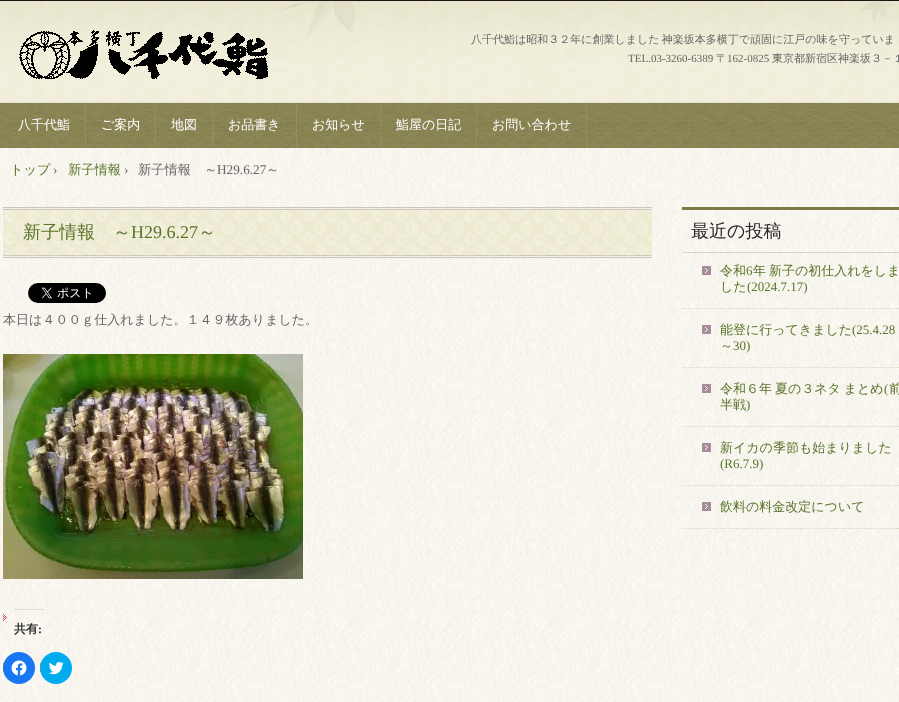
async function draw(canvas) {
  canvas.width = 899
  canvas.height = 702
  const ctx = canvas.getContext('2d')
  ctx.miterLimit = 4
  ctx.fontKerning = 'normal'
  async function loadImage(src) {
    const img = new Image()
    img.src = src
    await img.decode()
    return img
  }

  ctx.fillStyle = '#fff'
  ctx.fillRect(0, 0, 899, 702)
  ctx.drawImage(await loadImage('image0.png'), 0, 148, 899, 554)
  ctx.drawImage(await loadImage('image1.png'), 0, 0, 899, 102)
  ctx.drawImage(await loadImage('image2.png'), 19, 30, 249, 49)
  ctx.wordSpacing = '-1px'
  ctx.font = '500 11px WenQuanYi Zen Hei'
  ctx.fillStyle = '#666'
  ctx.fillText('八千代鮨は昭和３２年に創業しました 神楽坂本多横丁で頑固に江戸の味を守っていま', 471, 43)
  ctx.wordSpacing = '0px'
  ctx.font = '11px Liberation Serif'
  ctx.fillText('TEL.03-3260-6389', 628, 62)
  ctx.font = '500 11px WenQuanYi Zen Hei'
  ctx.fillText('〒', 716, 62)
  ctx.font = '11px Liberation Serif'
  ctx.fillText('162-0825', 727, 62)
  ctx.font = '500 11px WenQuanYi Zen Hei'
  ctx.fillText('東京都新宿区神楽坂３－１', 772, 62)
  ctx.drawImage(await loadImage('image3.png'), 0, 102, 899, 46)
  ctx.fillStyle = '#948f5d'
  ctx.fillRect(85, 103, 1, 45)
  ctx.font = '500 13px WenQuanYi Zen Hei'
  ctx.fillStyle = '#fff'
  ctx.fillText('八千代鮨', 18, 129)
  ctx.fillStyle = '#948f5d'
  ctx.fillRect(155, 103, 1, 45)
  ctx.fillStyle = '#fff'
  ctx.fillText('ご案内', 101, 129)
  ctx.fillStyle = '#948f5d'
  ctx.fillRect(212, 103, 1, 45)
  ctx.fillStyle = '#fff'
  ctx.fillText('地図', 171, 129)
  ctx.fillStyle = '#948f5d'
  ctx.fillRect(296, 103, 1, 45)
  ctx.fillStyle = '#fff'
  ctx.fillText('お品書き', 228, 129)
  ctx.fillStyle = '#948f5d'
  ctx.fillRect(380, 103, 1, 45)
  ctx.fillStyle = '#fff'
  ctx.fillText('お知らせ', 312, 129)
  ctx.fillStyle = '#948f5d'
  ctx.fillRect(476, 103, 1, 45)
  ctx.fillStyle = '#fff'
  ctx.fillText('鮨屋の日記', 396, 129)
  ctx.fillStyle = '#948f5d'
  ctx.fillRect(586, 103, 1, 45)
  ctx.fillStyle = '#fff'
  ctx.fillText('お問い合わせ', 492, 129)
  ctx.font = '500 13.25px WenQuanYi Zen Hei'
  ctx.fillStyle = '#59742b'
  ctx.fillText('トップ', 10, 174)
  ctx.font = '13.25px Liberation Serif'
  ctx.fillStyle = '#666'
  ctx.fillText('›', 53, 174)
  ctx.font = '500 13.25px WenQuanYi Zen Hei'
  ctx.fillStyle = '#59742b'
  ctx.fillText('新子情報', 68, 174)
  ctx.font = '13.25px Liberation Serif'
  ctx.fillStyle = '#666'
  ctx.fillText('›', 124, 174)
  ctx.font = '500 13.25px WenQuanYi Zen Hei'
  ctx.fillText('新子情報　～', 138, 174)
  ctx.font = '13.25px Liberation Serif'
  ctx.fillText('H29.6.27', 217, 174)
  ctx.font = '500 13.25px WenQuanYi Zen Hei'
  ctx.fillText('～', 266, 174)
  ctx.drawImage(await loadImage('image4.png'), 3, 207, 649, 51)
  ctx.font = '500 18px WenQuanYi Zen Hei'
  ctx.fillStyle = '#59742b'
  ctx.fillText('新子情報　～', 23, 238)
  ctx.font = '18px Liberation Serif'
  ctx.fillText('H29.6.27', 131, 238)
  ctx.font = '500 18px WenQuanYi Zen Hei'
  ctx.fillText('～', 198, 238)
  ctx.drawImage(await loadImage('image5.png'), 28, 283, 78, 20)
  ctx.font = '500 13px WenQuanYi Zen Hei'
  ctx.fillStyle = '#666'
  ctx.fillText('本日は４００ｇ仕入れました。１４９枚ありました。', 3, 324)
  ctx.drawImage(await loadImage('image6.png'), 3, 354, 300, 225)
  ctx.drawImage(await loadImage('image7.png'), 3, 614, 4, 7)
  ctx.fillStyle = '#dcdcde'
  ctx.fillRect(14, 609, 30, 1)
  ctx.font = 'bold 12px WenQuanYi Zen Hei'
  ctx.fillStyle = '#272727'
  ctx.fillText('共有', 14, 633)
  ctx.font = 'bold 12px Liberation Serif'
  ctx.fillText(':', 38, 633)
  ctx.drawImage(await loadImage('image8.png'), 3, 663, 1, 9)
  ctx.fillStyle = '#1877f2'
  ctx.beginPath()
  ctx.arc(19, 668, 16, 0, 2 * Math.PI)
  ctx.fill()
  ctx.drawImage(await loadImage('image9.png'), 11, 660, 16, 16)
  ctx.drawImage(await loadImage('image8.png'), 40, 663, 1, 9)
  ctx.fillStyle = '#00acee'
  ctx.beginPath()
  ctx.arc(56, 668, 16, 0, 2 * Math.PI)
  ctx.fill()
  ctx.drawImage(await loadImage('image10.png'), 48, 662, 16, 13)
  ctx.fillStyle = '#7f7947'
  ctx.fillRect(682, 207, 217, 3)
  ctx.fillStyle = '#dbd5bf'
  ctx.fillRect(682, 252, 217, 1)
  ctx.font = '500 18px WenQuanYi Zen Hei'
  ctx.fillStyle = '#272727'
  ctx.fillText('最近の投稿', 691, 237)
  ctx.drawImage(await loadImage('image11.png'), 702, 266, 9, 9)
  ctx.beginPath()
  ctx.moveTo(682, 308.5)
  ctx.lineTo(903, 308.5)
  ctx.strokeStyle = '#dbd5bf'
  ctx.setLineDash([1, 1])
  ctx.stroke()
  ctx.font = '500 13px WenQuanYi Zen Hei'
  ctx.fillStyle = '#59742b'
  ctx.fillText('令和', 720, 275)
  ctx.font = '13px Liberation Serif'
  ctx.fillText('6', 746, 275)
  ctx.wordSpacing = '-1px'
  ctx.font = '500 13px WenQuanYi Zen Hei'
  ctx.fillText('年 新子の初仕入れをしま', 753, 275)
  ctx.wordSpacing = '0px'
  ctx.fillText('した', 720, 291)
  ctx.font = '13px Liberation Serif'
  ctx.fillText('(2024.7.17)', 747, 291)
  ctx.drawImage(await loadImage('image11.png'), 702, 325, 9, 9)
  ctx.beginPath()
  ctx.moveTo(682, 367.5)
  ctx.lineTo(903, 367.5)
  ctx.stroke()
  ctx.font = '500 13px WenQuanYi Zen Hei'
  ctx.fillText('能登に行ってきました', 720, 334)
  ctx.font = '13px Liberation Serif'
  ctx.fillText('(25.4.28', 852, 334)
  ctx.font = '500 13px WenQuanYi Zen Hei'
  ctx.fillText('～', 720, 350)
  ctx.font = '13px Liberation Serif'
  ctx.fillText('30)', 733, 350)
  ctx.drawImage(await loadImage('image11.png'), 702, 384, 9, 9)
  ctx.beginPath()
  ctx.moveTo(682, 426.5)
  ctx.lineTo(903, 426.5)
  ctx.stroke()
  ctx.wordSpacing = '-1px'
  ctx.font = '500 13px WenQuanYi Zen Hei'
  ctx.fillText('令和６年 夏の３ネタ まとめ', 720, 393)
  ctx.wordSpacing = '0px'
  ctx.font = '13px Liberation Serif'
  ctx.fillText('(', 884, 393)
  ctx.font = '500 13px WenQuanYi Zen Hei'
  ctx.fillText('前', 889, 393)
  ctx.fillText('半戦', 720, 409)
  ctx.font = '13px Liberation Serif'
  ctx.fillText(')', 746, 409)
  ctx.drawImage(await loadImage('image11.png'), 702, 443, 9, 9)
  ctx.beginPath()
  ctx.moveTo(682, 485.5)
  ctx.lineTo(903, 485.5)
  ctx.stroke()
  ctx.font = '500 13px WenQuanYi Zen Hei'
  ctx.fillText('新イカの季節も始まりました', 720, 452)
  ctx.font = '13px Liberation Serif'
  ctx.fillText('(R6.7.9)', 720, 468)
  ctx.drawImage(await loadImage('image11.png'), 702, 502, 9, 9)
  ctx.beginPath()
  ctx.moveTo(682, 528.5)
  ctx.lineTo(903, 528.5)
  ctx.stroke()
  ctx.font = '500 13px WenQuanYi Zen Hei'
  ctx.fillText('飲料の料金改定について', 720, 511)
}

draw(document.querySelector('canvas'))
